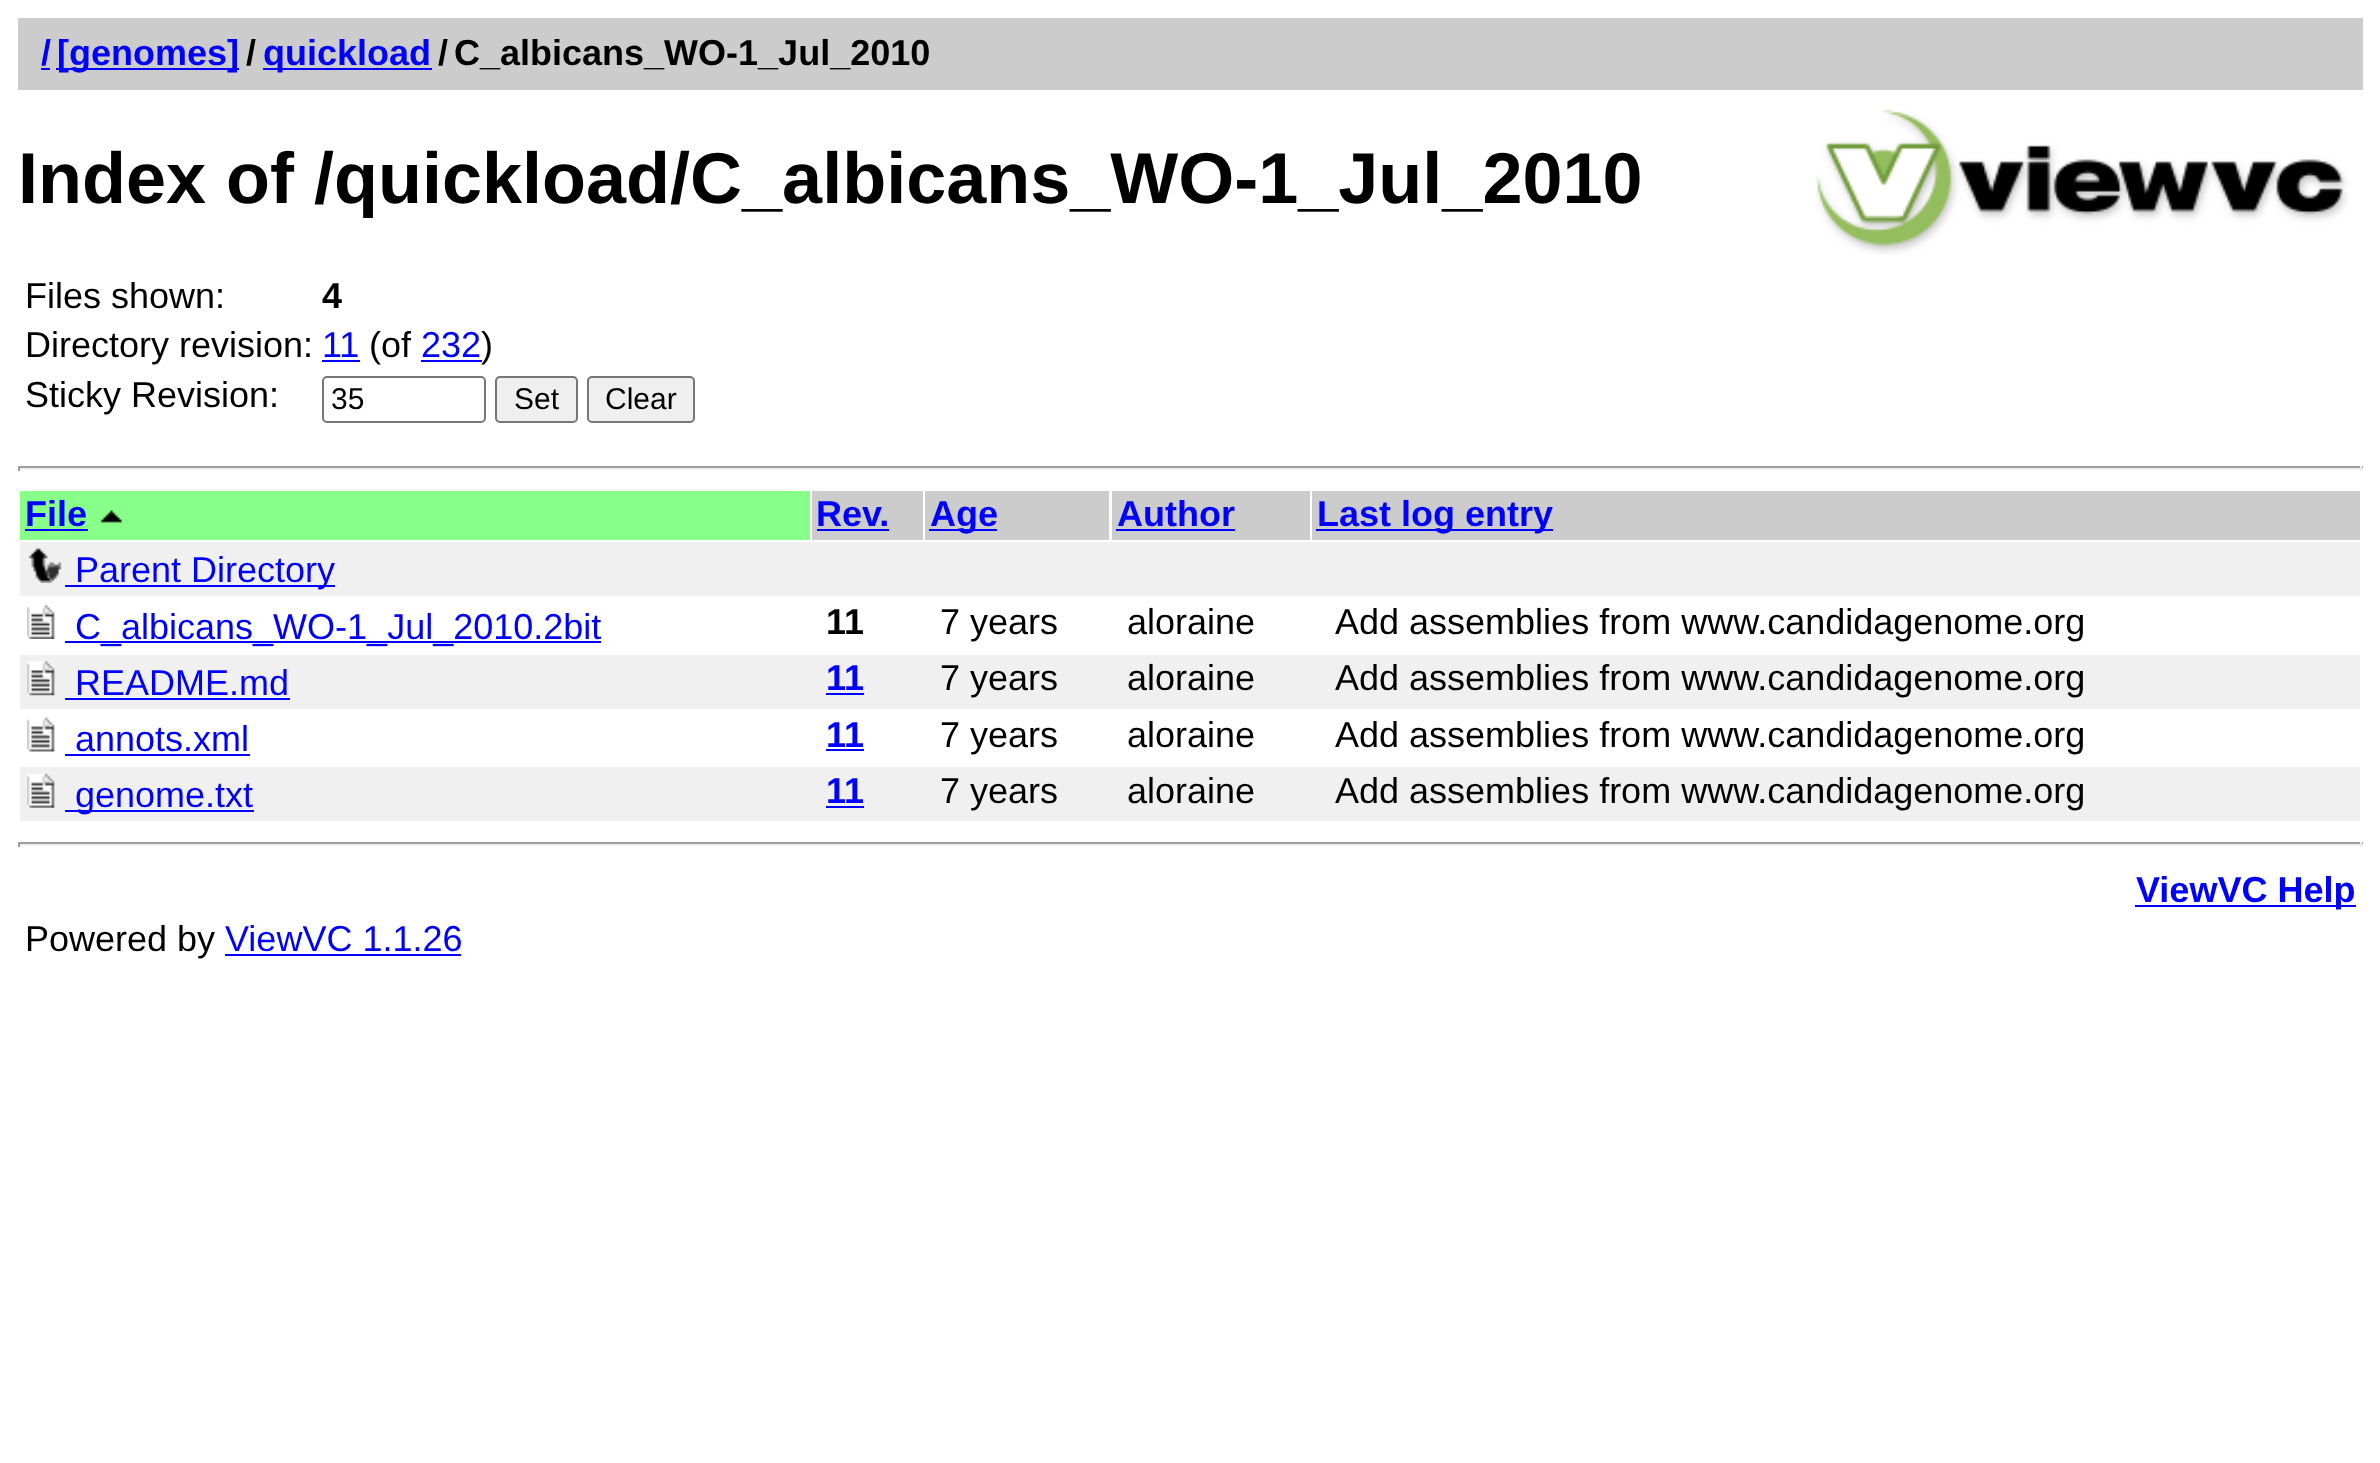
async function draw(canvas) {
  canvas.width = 2380
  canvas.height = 1463
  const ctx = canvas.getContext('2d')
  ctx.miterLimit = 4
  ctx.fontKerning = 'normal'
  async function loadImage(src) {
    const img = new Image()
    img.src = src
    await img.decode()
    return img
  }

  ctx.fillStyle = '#fff'
  ctx.fillRect(0, 0, 2380, 1463)
  ctx.fillStyle = '#ccc'
  ctx.fillRect(18, 18, 2345, 72)
  ctx.font = 'bold 36px Liberation Sans'
  ctx.fillStyle = '#00f'
  ctx.fillText('/', 41, 65)
  ctx.fillRect(41, 68, 9, 2)
  ctx.fillRect(56, 68, 183, 2)
  ctx.fillText('[genomes]', 57, 65)
  ctx.fillStyle = '#000'
  ctx.fillText('/', 246, 65)
  ctx.fillStyle = '#00f'
  ctx.fillRect(263, 68, 169, 2)
  ctx.fillText('quickload', 263, 65)
  ctx.fillStyle = '#000'
  ctx.fillText('/', 438, 65)
  ctx.fillText('C_albicans_WO-1_Jul_2010', 454, 65)
  ctx.font = 'bold 72px Liberation Sans'
  ctx.fillText('Index of /quickload/C_albicans_WO-1_Jul_2010', 18, 203)
  ctx.drawImage(await loadImage('image0.png'), 1815, 109, 534, 146)
  ctx.font = '36px Liberation Sans'
  ctx.fillText('Files shown:', 25, 308)
  ctx.font = 'bold 36px Liberation Sans'
  ctx.fillText('4', 322, 308)
  ctx.font = '36px Liberation Sans'
  ctx.fillText('Directory revision:', 25, 357)
  ctx.fillStyle = '#00f'
  ctx.fillText('11', 322, 357)
  ctx.fillRect(322, 360, 38, 2)
  ctx.fillStyle = '#000'
  ctx.fillText('(of', 369, 357)
  ctx.fillStyle = '#00f'
  ctx.fillText('232', 421, 357)
  ctx.fillRect(421, 360, 61, 2)
  ctx.fillStyle = '#000'
  ctx.fillText(')', 481, 357)
  ctx.fillText('Sticky Revision:', 25, 407)
  ctx.beginPath()
  ctx.roundRect(323, 377, 162, 45, 4)
  ctx.strokeStyle = '#767676'
  ctx.lineWidth = 2
  ctx.stroke()
  ctx.font = '30px Liberation Sans'
  ctx.fillText('35', 331, 409)
  ctx.fillStyle = '#efefef'
  ctx.beginPath()
  ctx.roundRect(496, 377, 81, 45, 4)
  ctx.fill()
  ctx.stroke()
  ctx.fillStyle = '#000'
  ctx.fillText('Set', 514, 409)
  ctx.fillStyle = '#efefef'
  ctx.beginPath()
  ctx.roundRect(588, 377, 106, 45, 4)
  ctx.fill()
  ctx.stroke()
  ctx.fillStyle = '#000'
  ctx.fillText('Clear', 605, 409)
  ctx.fillStyle = '#9f9f9f'
  ctx.fillRect(18, 466, 2345, 2)
  ctx.fillStyle = '#eee'
  ctx.fillRect(2360, 466, 2, 5)
  ctx.fillRect(18, 468, 2345, 2)
  ctx.fillStyle = '#9f9f9f'
  ctx.fillRect(18, 466, 2, 5)
  ctx.fillStyle = '#8f8'
  ctx.fillRect(20, 491, 790, 49)
  ctx.font = 'bold 36px Liberation Sans'
  ctx.fillStyle = '#00f'
  ctx.fillText('File', 25, 526)
  ctx.fillRect(25, 529, 63, 2)
  ctx.drawImage(await loadImage('image1.png'), 100, 510, 23, 13)
  ctx.fillStyle = '#ccc'
  ctx.fillRect(812, 491, 111, 49)
  ctx.fillStyle = '#00f'
  ctx.fillText('Rev.', 816, 526)
  ctx.fillRect(817, 529, 72, 2)
  ctx.fillStyle = '#ccc'
  ctx.fillRect(925, 491, 184, 49)
  ctx.fillStyle = '#00f'
  ctx.fillRect(929, 529, 68, 2)
  ctx.fillText('Age', 930, 526)
  ctx.fillStyle = '#ccc'
  ctx.fillRect(1112, 491, 198, 49)
  ctx.fillStyle = '#00f'
  ctx.fillText('Author', 1117, 526)
  ctx.fillRect(1116, 529, 119, 2)
  ctx.fillStyle = '#ccc'
  ctx.fillRect(1312, 491, 1048, 49)
  ctx.fillStyle = '#00f'
  ctx.fillRect(1316, 529, 237, 2)
  ctx.fillText('Last log entry', 1317, 526)
  ctx.fillStyle = '#f0f0f0'
  ctx.fillRect(20, 542, 2340, 54)
  ctx.drawImage(await loadImage('image2.png'), 28, 548, 34, 35)
  ctx.fillStyle = '#00f'
  ctx.fillRect(65, 585, 270, 2)
  ctx.font = '36px Liberation Sans'
  ctx.fillText('Parent Directory', 75, 582)
  ctx.drawImage(await loadImage('image3.png'), 27, 604, 28, 35)
  ctx.fillRect(65, 641, 536, 2)
  ctx.fillText('C_albicans_WO-1_Jul_2010.2bit', 75, 639)
  ctx.font = 'bold 36px Liberation Sans'
  ctx.fillStyle = '#000'
  ctx.fillText('11', 826, 634)
  ctx.font = '36px Liberation Sans'
  ctx.fillText('7 years', 940, 634)
  ctx.fillText('aloraine', 1127, 634)
  ctx.fillText('Add assemblies from www.candidagenome.org', 1335, 634)
  ctx.fillStyle = '#f0f0f0'
  ctx.fillRect(20, 655, 2340, 54)
  ctx.drawImage(await loadImage('image4.png'), 27, 661, 28, 35)
  ctx.fillStyle = '#00f'
  ctx.fillText('README.md', 75, 695)
  ctx.fillRect(65, 698, 225, 2)
  ctx.font = 'bold 36px Liberation Sans'
  ctx.fillText('11', 826, 690)
  ctx.fillRect(826, 693, 38, 2)
  ctx.font = '36px Liberation Sans'
  ctx.fillStyle = '#000'
  ctx.fillText('7 years', 940, 690)
  ctx.fillText('aloraine', 1127, 690)
  ctx.fillText('Add assemblies from www.candidagenome.org', 1335, 690)
  ctx.drawImage(await loadImage('image5.png'), 27, 717, 28, 35)
  ctx.fillStyle = '#00f'
  ctx.fillText('annots.xml', 75, 751)
  ctx.fillRect(65, 754, 185, 2)
  ctx.font = 'bold 36px Liberation Sans'
  ctx.fillText('11', 826, 747)
  ctx.fillRect(826, 749, 38, 2)
  ctx.font = '36px Liberation Sans'
  ctx.fillStyle = '#000'
  ctx.fillText('7 years', 940, 747)
  ctx.fillText('aloraine', 1127, 747)
  ctx.fillText('Add assemblies from www.candidagenome.org', 1335, 747)
  ctx.fillStyle = '#f0f0f0'
  ctx.fillRect(20, 767, 2340, 54)
  ctx.drawImage(await loadImage('image6.png'), 27, 773, 28, 35)
  ctx.fillStyle = '#00f'
  ctx.fillRect(65, 810, 189, 2)
  ctx.fillText('genome.txt', 75, 807)
  ctx.font = 'bold 36px Liberation Sans'
  ctx.fillText('11', 826, 803)
  ctx.fillRect(826, 806, 38, 2)
  ctx.font = '36px Liberation Sans'
  ctx.fillStyle = '#000'
  ctx.fillText('7 years', 940, 803)
  ctx.fillText('aloraine', 1127, 803)
  ctx.fillText('Add assemblies from www.candidagenome.org', 1335, 803)
  ctx.fillStyle = '#9f9f9f'
  ctx.fillRect(18, 842, 2345, 2)
  ctx.fillStyle = '#eee'
  ctx.fillRect(2360, 842, 2, 5)
  ctx.fillRect(18, 844, 2345, 2)
  ctx.fillStyle = '#9f9f9f'
  ctx.fillRect(18, 842, 2, 5)
  ctx.fillStyle = '#00f'
  ctx.fillRect(2135, 905, 221, 2)
  ctx.font = 'bold 36px Liberation Sans'
  ctx.fillText('ViewVC Help', 2136, 902)
  ctx.font = '36px Liberation Sans'
  ctx.fillStyle = '#000'
  ctx.fillText('Powered by', 25, 951)
  ctx.fillStyle = '#00f'
  ctx.fillText('ViewVC 1.1.26', 225, 951)
  ctx.fillRect(225, 954, 236, 2)
}

draw(document.querySelector('canvas'))
